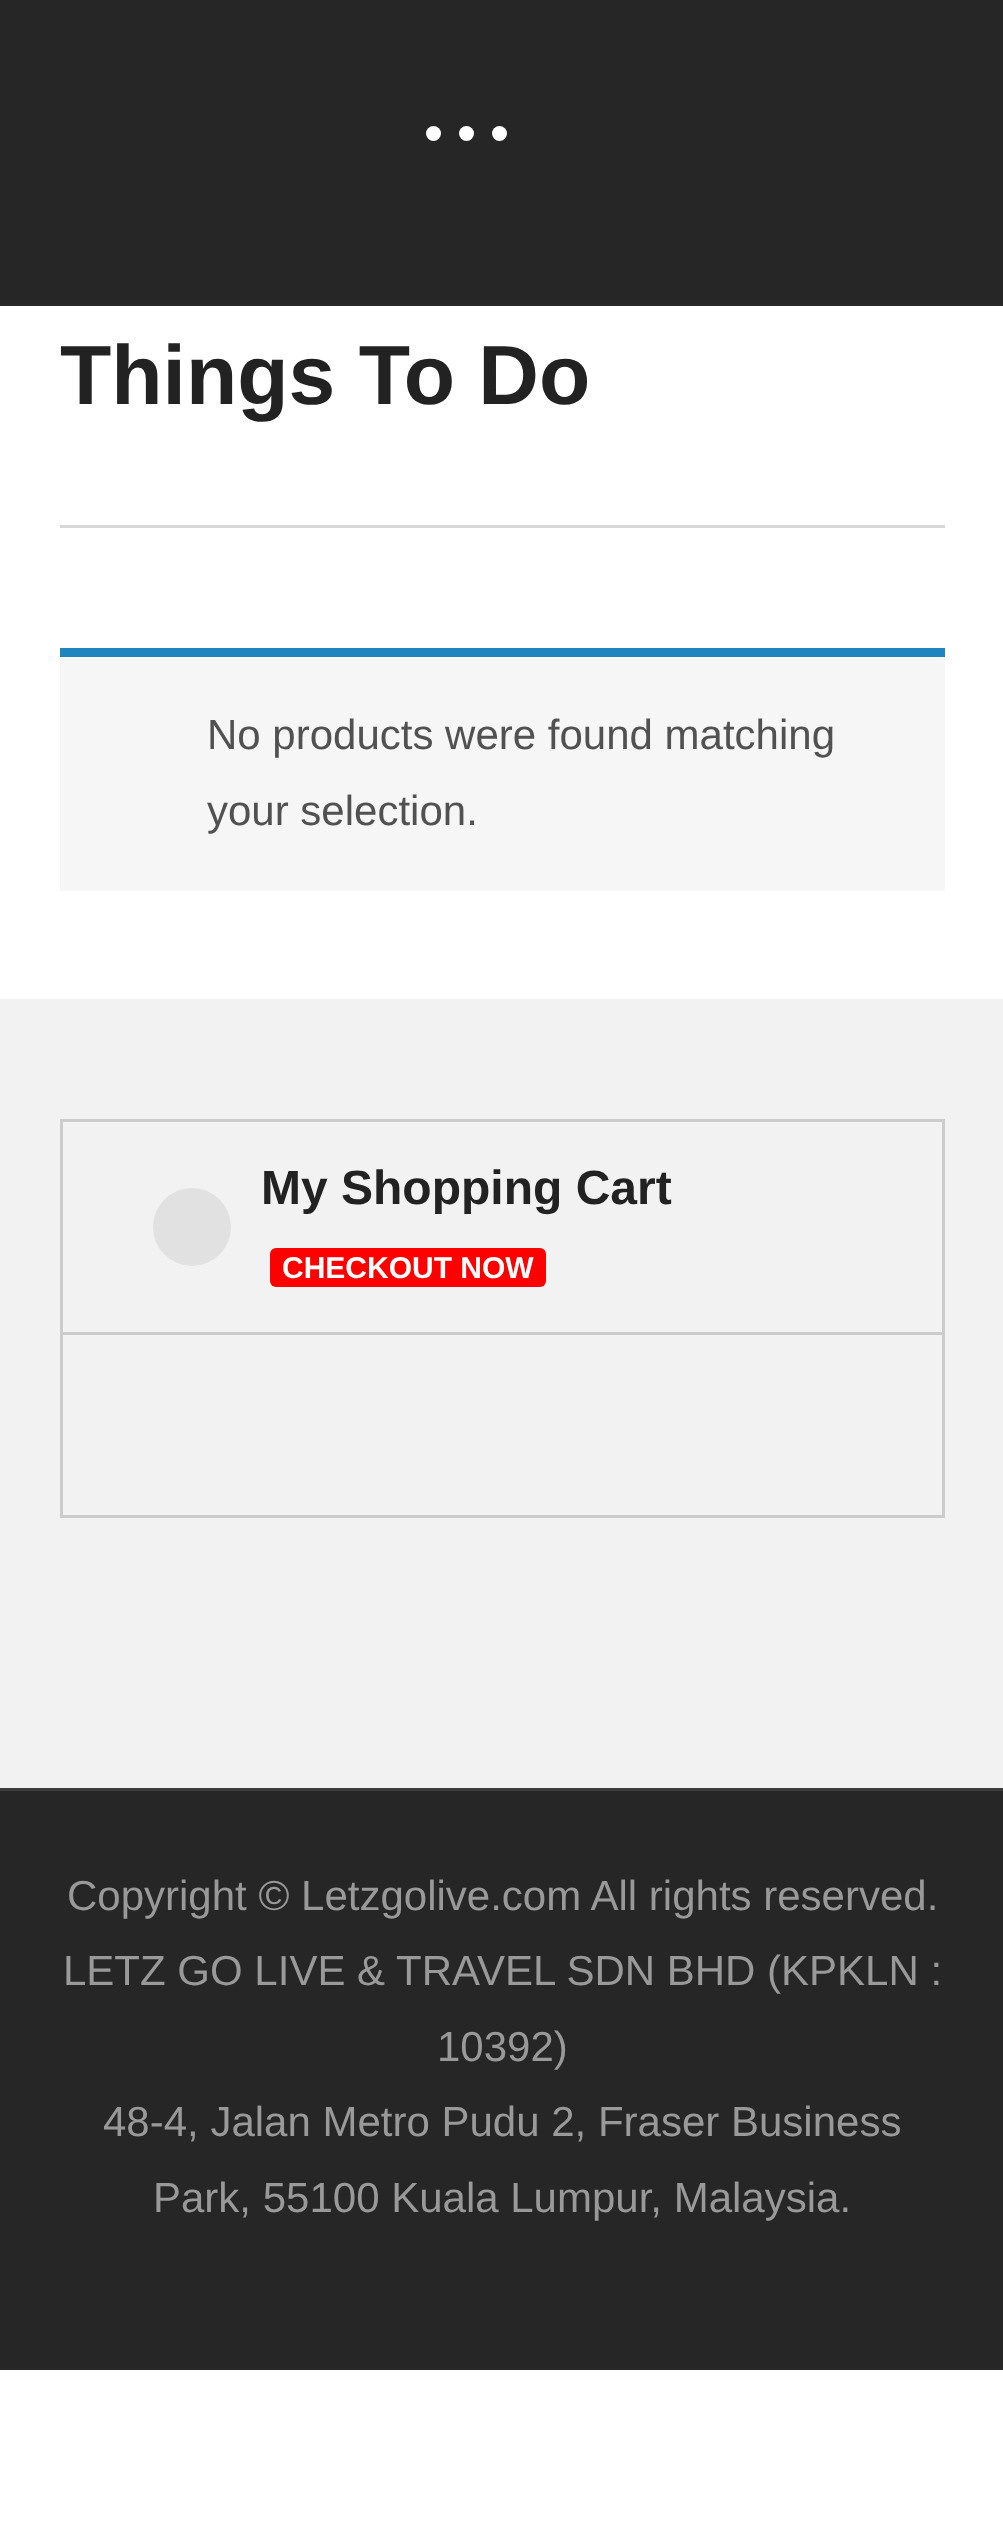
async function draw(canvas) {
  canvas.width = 1003
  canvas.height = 2534
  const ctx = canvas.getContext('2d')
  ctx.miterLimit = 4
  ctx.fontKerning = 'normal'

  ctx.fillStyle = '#fff'
  ctx.fillRect(0, 0, 1003, 2534)
  ctx.fillStyle = '#262626'
  ctx.fillRect(0, 0, 1003, 306)
  ctx.fillStyle = '#fff'
  ctx.beginPath()
  ctx.arc(433.5, 133.5, 7.5, 0, 2 * Math.PI)
  ctx.fill()
  ctx.beginPath()
  ctx.arc(466.5, 133.5, 7.5, 0, 2 * Math.PI)
  ctx.fill()
  ctx.beginPath()
  ctx.arc(499.5, 133.5, 7.5, 0, 2 * Math.PI)
  ctx.fill()
  ctx.fillStyle = '#d7d7d7'
  ctx.fillRect(60, 525, 885, 3)
  ctx.font = 'bold 84px Liberation Sans'
  ctx.fillStyle = '#222'
  ctx.fillText('Things To Do', 60, 404)
  ctx.fillStyle = '#f7f6f7'
  ctx.fillRect(60, 657, 885, 234)
  ctx.fillStyle = '#1e85be'
  ctx.fillRect(60, 648, 885, 9)
  ctx.font = '42px Liberation Sans'
  ctx.fillStyle = '#515151'
  ctx.fillText('No products were found matching', 207, 749)
  ctx.fillText('your selection.', 207, 825)
  ctx.fillStyle = '#f2f2f2'
  ctx.fillRect(0, 999, 1003, 789)
  ctx.strokeStyle = '#ccc'
  ctx.lineWidth = 3
  ctx.strokeRect(61.5, 1120.5, 882, 396)
  ctx.fillStyle = '#e1e1e1'
  ctx.beginPath()
  ctx.arc(192, 1227, 39, 0, 2 * Math.PI)
  ctx.fill()
  ctx.font = 'bold 48px Liberation Sans'
  ctx.fillStyle = '#222'
  ctx.fillText('My Shopping Cart', 261, 1204)
  ctx.fillStyle = '#f00'
  ctx.beginPath()
  ctx.roundRect(270, 1248, 276, 39, 6)
  ctx.fill()
  ctx.font = 'bold 30px Liberation Sans'
  ctx.fillStyle = '#fff'
  ctx.fillText('CHECKOUT NOW', 282, 1278)
  ctx.fillStyle = '#ccc'
  ctx.fillRect(63, 1332, 879, 3)
  ctx.fillStyle = '#262626'
  ctx.fillRect(0, 1791, 1003, 579)
  ctx.fillStyle = '#3c3c3c'
  ctx.fillRect(0, 1788, 1003, 3)
  ctx.font = '42px Liberation Sans'
  ctx.fillStyle = '#999'
  ctx.fillText('Copyright © Letzgolive.com All rights reserved.', 67, 1910)
  ctx.fillText('LETZ GO LIVE & TRAVEL SDN BHD (KPKLN :', 63, 1985)
  ctx.fillText('10392)', 437, 2061)
  ctx.fillText('48-4, Jalan Metro Pudu 2, Fraser Business', 103, 2136)
  ctx.fillText('Park, 55100 Kuala Lumpur, Malaysia.', 153, 2212)
}

draw(document.querySelector('canvas'))
